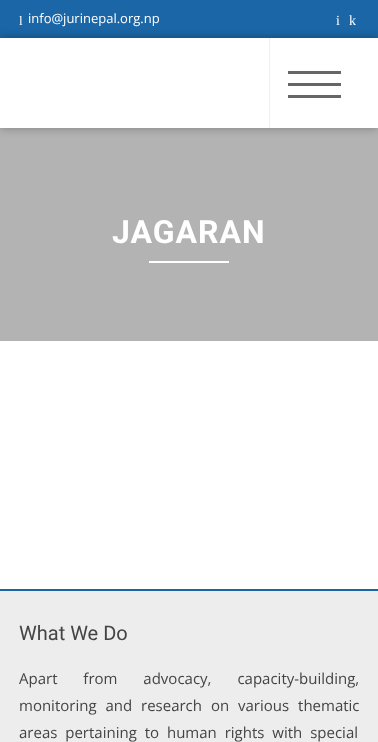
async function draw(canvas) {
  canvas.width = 378
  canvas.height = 742
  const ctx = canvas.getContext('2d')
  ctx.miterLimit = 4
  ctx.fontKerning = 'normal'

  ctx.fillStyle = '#fff'
  ctx.fillRect(0, 0, 378, 742)
  ctx.fillStyle = '#1b66a6'
  ctx.fillRect(0, 0, 378, 38)
  ctx.font = '13px Liberation Serif'
  ctx.fillStyle = '#fff'
  ctx.fillText('l', 19, 25)
  ctx.font = '13px Open Sans'
  ctx.fillText('info@jurinepal.org.np', 28, 23)
  ctx.font = '14px Liberation Serif'
  ctx.fillText('i', 336, 25)
  ctx.fillText('k', 349, 25)
  ctx.fillStyle = '#b3b3b3'
  ctx.fillRect(0, 128, 378, 213)
  ctx.fillStyle = '#0000004d'
  ctx.filter = 'blur(5px)'
  ctx.beginPath()
  ctx.rect(0, 38, 378, 90)
  ctx.fill()
  ctx.filter = 'none'
  ctx.fillStyle = '#fff'
  ctx.fillRect(0, 38, 378, 90)
  ctx.fillStyle = '#eee'
  ctx.fillRect(269, 38, 1, 90)
  ctx.fillStyle = '#666'
  ctx.fillRect(288, 95, 53, 3)
  ctx.fillRect(288, 71, 53, 3)
  ctx.fillRect(288, 83, 53, 3)
  ctx.letterSpacing = '1px'
  ctx.font = 'bold 32px Roboto'
  ctx.fillStyle = '#fff'
  ctx.fillText('JAGARAN', 112, 243)
  ctx.fillRect(149, 261, 80, 2)
  ctx.fillStyle = '#ededed'
  ctx.fillRect(0, 591, 378, 151)
  ctx.fillStyle = '#1b66a6'
  ctx.fillRect(0, 589, 378, 2)
  ctx.letterSpacing = '0px'
  ctx.font = '20px Roboto'
  ctx.fillStyle = '#444'
  ctx.fillText('What We Do', 19, 640)
  ctx.wordSpacing = '22px'
  ctx.font = '15px Open Sans'
  ctx.fillText('Apart from advocacy, capacity-building,', 19, 684)
  ctx.wordSpacing = '5px'
  ctx.fillText('monitoring and research on various thematic', 19, 711)
  ctx.wordSpacing = '4px'
  ctx.fillText('areas pertaining to human rights with special', 19, 738)
}

draw(document.querySelector('canvas'))
